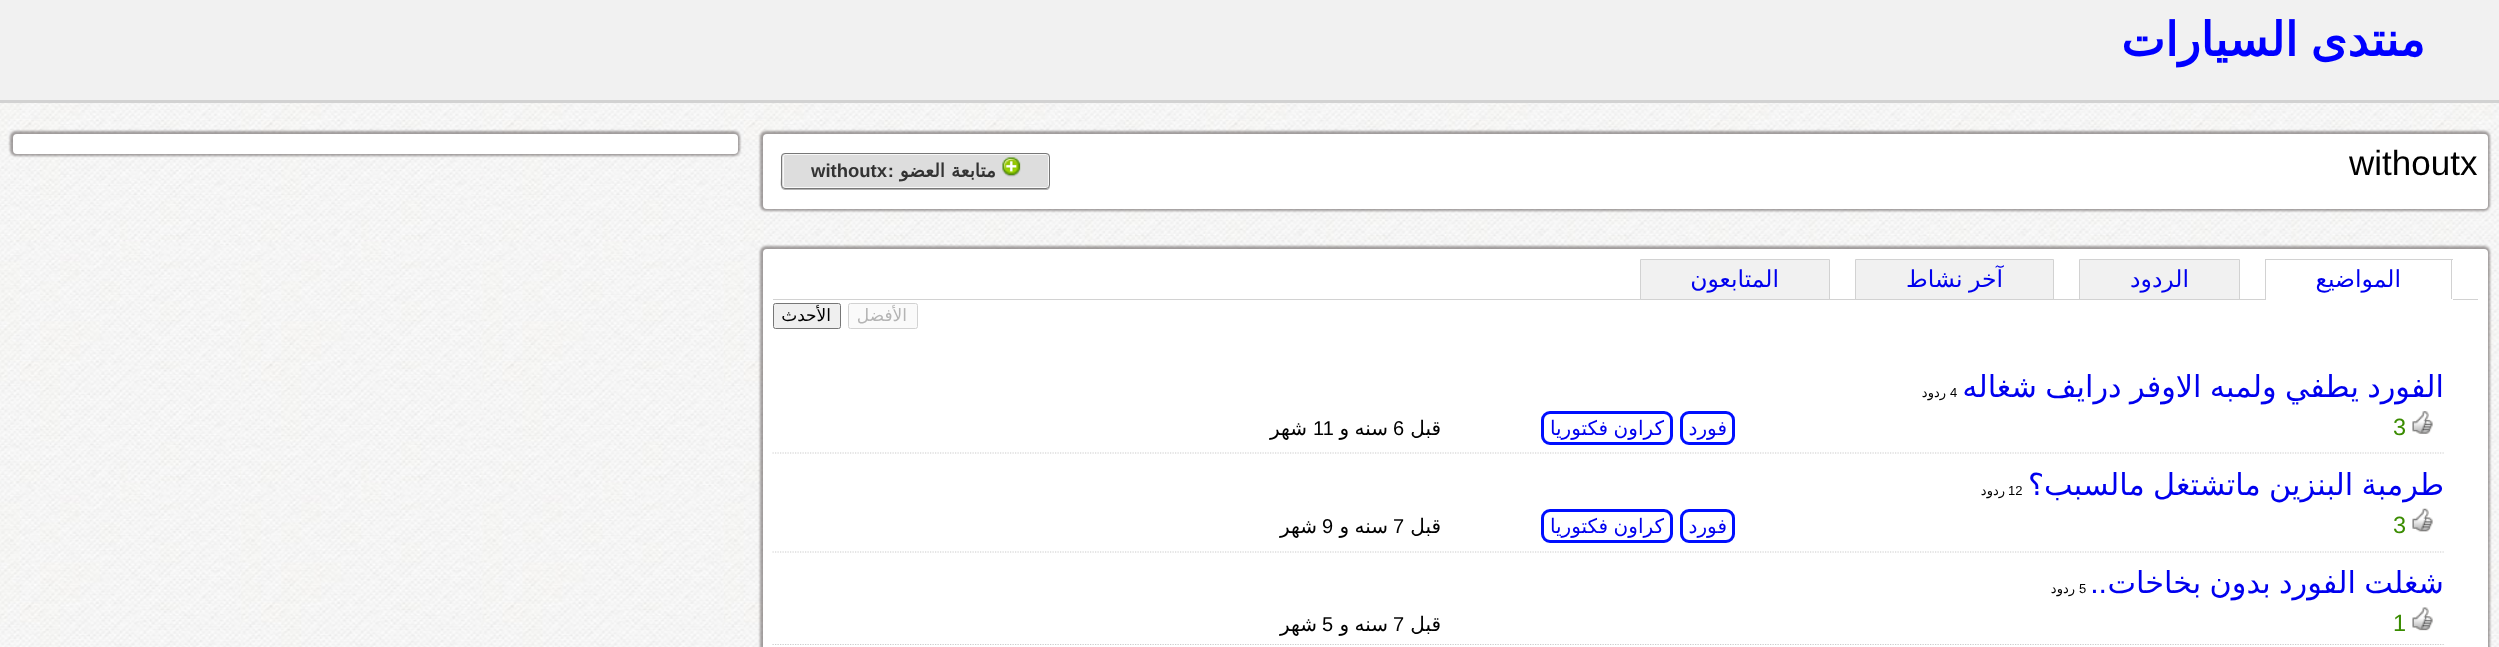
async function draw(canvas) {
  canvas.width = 2499
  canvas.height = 647
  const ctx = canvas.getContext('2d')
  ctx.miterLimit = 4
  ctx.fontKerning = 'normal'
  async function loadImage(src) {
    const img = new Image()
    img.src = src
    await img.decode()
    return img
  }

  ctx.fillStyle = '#fff'
  ctx.fillRect(0, 0, 2499, 647)
  ctx.drawImage(await loadImage('image0.png'), 0, 103, 2499, 544)
  ctx.fillStyle = '#f1f1f1'
  ctx.fillRect(0, 0, 2499, 100)
  ctx.fillStyle = '#d2d2d2'
  ctx.fillRect(0, 100, 2499, 3)
  ctx.wordSpacing = '-2px'
  ctx.direction = 'rtl'
  ctx.font = 'bold 46.75px DejaVu Sans'
  ctx.fillStyle = '#00f'
  ctx.fillText('منتدى السيارات', 2425, 56)
  ctx.fillStyle = '#22191966'
  ctx.filter = 'blur(1px)'
  ctx.beginPath()
  ctx.roundRect(10, 131, 730, 25, 6)
  ctx.fill()
  ctx.filter = 'none'
  ctx.fillStyle = '#fff'
  ctx.beginPath()
  ctx.roundRect(13, 134, 725, 20, 4)
  ctx.fill()
  ctx.fillStyle = '#22191966'
  ctx.filter = 'blur(1px)'
  ctx.beginPath()
  ctx.roundRect(760, 131, 1730, 80, 6)
  ctx.fill()
  ctx.filter = 'none'
  ctx.fillStyle = '#fff'
  ctx.beginPath()
  ctx.roundRect(763, 134, 1725, 75, 4)
  ctx.fill()
  ctx.wordSpacing = '0px'
  ctx.direction = 'ltr'
  ctx.font = '35px Liberation Sans'
  ctx.fillStyle = '#000'
  ctx.fillText('withoutx', 2349, 175)
  ctx.fillStyle = '#b3b3b3'
  ctx.beginPath()
  ctx.moveTo(781, 157)
  ctx.lineTo(781, 177)
  ctx.bezierCurveTo(781, 180, 779, 190, 785, 190)
  ctx.lineTo(1046, 190)
  ctx.bezierCurveTo(1049, 190, 1050, 188, 1050, 185)
  ctx.bezierCurveTo(1050, 187, 1048, 189, 1046, 189)
  ctx.lineTo(785, 189)
  ctx.bezierCurveTo(783, 189, 781, 187, 781, 185)
  ctx.closePath()
  ctx.fill()
  ctx.fillStyle = '#ddd'
  ctx.beginPath()
  ctx.roundRect(781, 153, 269, 36, 4)
  ctx.fill()
  ctx.beginPath()
  ctx.roundRect(783.5, 154.5, 265, 33, 2)
  ctx.strokeStyle = '#f8f8f8'
  ctx.stroke()
  ctx.beginPath()
  ctx.roundRect(781.5, 153.5, 268, 35, 3.5)
  ctx.strokeStyle = '#777'
  ctx.stroke()
  ctx.drawImage(await loadImage('image1.png'), 1002, 157, 19, 20)
  ctx.direction = 'rtl'
  ctx.font = 'bold 18.5px DejaVu Sans'
  ctx.fillStyle = '#333'
  ctx.fillText('متابعة العضو', 996, 177)
  ctx.font = 'bold 18.5px Liberation Sans'
  ctx.fillText(':', 894, 177)
  ctx.direction = 'ltr'
  ctx.fillText('withoutx', 811, 177)
  ctx.fillStyle = '#22191966'
  ctx.filter = 'blur(1px)'
  ctx.beginPath()
  ctx.roundRect(760, 246, 1730, 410, 6)
  ctx.fill()
  ctx.filter = 'none'
  ctx.fillStyle = '#fff'
  ctx.beginPath()
  ctx.roundRect(763, 249, 1725, 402, 4)
  ctx.fill()
  ctx.fillStyle = '#d2d2d2'
  ctx.fillRect(773, 299, 1705, 1)
  ctx.fillRect(2265, 259, 188, 1)
  ctx.fillRect(2451, 259, 1, 41)
  ctx.fillStyle = '#fff'
  ctx.fillRect(2265, 299, 188, 1)
  ctx.fillStyle = '#d2d2d2'
  ctx.fillRect(2265, 259, 1, 41)
  ctx.direction = 'rtl'
  ctx.font = '23.5px DejaVu Sans'
  ctx.fillStyle = '#00e'
  ctx.fillText('المواضيع', 2401, 287)
  ctx.fillStyle = '#f1f1f1'
  ctx.beginPath()
  ctx.rect(2079.5, 259.5, 160, 40)
  ctx.fill()
  ctx.strokeStyle = '#d2d2d2'
  ctx.stroke()
  ctx.fillStyle = '#00e'
  ctx.fillText('الردود', 2189, 287)
  ctx.fillStyle = '#f1f1f1'
  ctx.beginPath()
  ctx.rect(1855.5, 259.5, 198, 40)
  ctx.fill()
  ctx.stroke()
  ctx.wordSpacing = '-1px'
  ctx.fillStyle = '#00e'
  ctx.fillText('آخر نشاط', 2003, 287)
  ctx.fillStyle = '#f1f1f1'
  ctx.beginPath()
  ctx.rect(1640.5, 259.5, 189, 40)
  ctx.fill()
  ctx.stroke()
  ctx.wordSpacing = '0px'
  ctx.fillStyle = '#00e'
  ctx.fillText('المتابعون', 1779, 287)
  ctx.fillStyle = '#fafafa'
  ctx.beginPath()
  ctx.roundRect(848.5, 303.5, 69, 25, 2)
  ctx.fill()
  ctx.stroke()
  ctx.font = '17px DejaVu Sans'
  ctx.fillStyle = '#b4b4b4'
  ctx.fillText('الأفضل', 907, 321)
  ctx.fillStyle = '#efefef'
  ctx.beginPath()
  ctx.roundRect(773.5, 303.5, 67, 25, 2)
  ctx.fill()
  ctx.strokeStyle = '#767676'
  ctx.stroke()
  ctx.fillStyle = '#000'
  ctx.fillText('الأحدث', 831, 321)
  ctx.beginPath()
  ctx.moveTo(772.5, 453)
  ctx.lineTo(2444, 453)
  ctx.strokeStyle = '#ccc'
  ctx.lineWidth = 1.2
  ctx.setLineDash([1.25, 1.25])
  ctx.stroke()
  ctx.wordSpacing = '-1.25px'
  ctx.font = '30.3px DejaVu Sans'
  ctx.fillStyle = '#00e'
  ctx.fillText('الفورد يطفي ولمبه الاوفر درايف شغاله', 2444, 397)
  ctx.wordSpacing = '0px'
  ctx.direction = 'ltr'
  ctx.font = '13px Liberation Sans'
  ctx.fillStyle = '#000'
  ctx.fillText('4', 1950, 397)
  ctx.direction = 'rtl'
  ctx.font = '13px DejaVu Sans'
  ctx.fillText('ردود', 1946, 397)
  ctx.drawImage(await loadImage('image2.png'), 2412, 411, 21, 23)
  ctx.direction = 'ltr'
  ctx.font = '23.5px Liberation Sans'
  ctx.fillStyle = '#3a8c00'
  ctx.fillText('3', 2393, 435)
  ctx.beginPath()
  ctx.roundRect(1681.5, 412.5, 52, 31, 7.5)
  ctx.strokeStyle = '#000fff'
  ctx.lineWidth = 3
  ctx.setLineDash([])
  ctx.stroke()
  ctx.direction = 'rtl'
  ctx.font = '20px DejaVu Sans'
  ctx.fillStyle = '#00e'
  ctx.fillText('فورد', 1727, 435)
  ctx.beginPath()
  ctx.roundRect(1542.5, 412.5, 129, 31, 7.5)
  ctx.stroke()
  ctx.wordSpacing = '-1px'
  ctx.fillText('كراون فكتوريا', 1664, 435)
  ctx.wordSpacing = '0px'
  ctx.fillStyle = '#000'
  ctx.fillText('قبل', 1441, 435)
  ctx.direction = 'ltr'
  ctx.font = '20px Liberation Sans'
  ctx.fillText('6', 1393, 435)
  ctx.wordSpacing = '-1px'
  ctx.direction = 'rtl'
  ctx.font = '20px DejaVu Sans'
  ctx.fillText('سنه و', 1388, 435)
  ctx.wordSpacing = '0px'
  ctx.direction = 'ltr'
  ctx.font = '20px Liberation Sans'
  ctx.fillText('11', 1313, 435)
  ctx.direction = 'rtl'
  ctx.font = '20px DejaVu Sans'
  ctx.fillText('شهر', 1307, 435)
  ctx.beginPath()
  ctx.moveTo(772.5, 552)
  ctx.lineTo(2444, 552)
  ctx.strokeStyle = '#ccc'
  ctx.lineWidth = 1.2
  ctx.setLineDash([1.25, 1.25])
  ctx.stroke()
  ctx.wordSpacing = '-1.25px'
  ctx.font = '30.3px DejaVu Sans'
  ctx.fillStyle = '#00e'
  ctx.fillText('طرمبة البنزين ماتشتغل مالسبب؟', 2444, 495)
  ctx.wordSpacing = '0px'
  ctx.direction = 'ltr'
  ctx.font = '13px Liberation Sans'
  ctx.fillStyle = '#000'
  ctx.fillText('12', 2008, 495)
  ctx.direction = 'rtl'
  ctx.font = '13px DejaVu Sans'
  ctx.fillText('ردود', 2005, 495)
  ctx.drawImage(await loadImage('image3.png'), 2412, 508, 21, 24)
  ctx.direction = 'ltr'
  ctx.font = '23.5px Liberation Sans'
  ctx.fillStyle = '#3a8c00'
  ctx.fillText('3', 2393, 533)
  ctx.beginPath()
  ctx.roundRect(1681.5, 510.5, 52, 31, 7.5)
  ctx.strokeStyle = '#000fff'
  ctx.lineWidth = 3
  ctx.setLineDash([])
  ctx.stroke()
  ctx.direction = 'rtl'
  ctx.font = '20px DejaVu Sans'
  ctx.fillStyle = '#00e'
  ctx.fillText('فورد', 1727, 533)
  ctx.beginPath()
  ctx.roundRect(1542.5, 510.5, 129, 31, 7.5)
  ctx.stroke()
  ctx.wordSpacing = '-1px'
  ctx.fillText('كراون فكتوريا', 1664, 533)
  ctx.wordSpacing = '0px'
  ctx.fillStyle = '#000'
  ctx.fillText('قبل', 1441, 533)
  ctx.direction = 'ltr'
  ctx.font = '20px Liberation Sans'
  ctx.fillText('7', 1393, 533)
  ctx.wordSpacing = '-1px'
  ctx.direction = 'rtl'
  ctx.font = '20px DejaVu Sans'
  ctx.fillText('سنه و', 1388, 533)
  ctx.wordSpacing = '0px'
  ctx.direction = 'ltr'
  ctx.font = '20px Liberation Sans'
  ctx.fillText('9', 1322, 533)
  ctx.direction = 'rtl'
  ctx.font = '20px DejaVu Sans'
  ctx.fillText('شهر', 1317, 533)
  ctx.beginPath()
  ctx.moveTo(772.5, 644.5)
  ctx.lineTo(2444, 644.5)
  ctx.strokeStyle = '#ccc'
  ctx.lineWidth = 1.2
  ctx.setLineDash([1.25, 1.25])
  ctx.stroke()
  ctx.wordSpacing = '-1.25px'
  ctx.font = '30.3px DejaVu Sans'
  ctx.fillStyle = '#00e'
  ctx.fillText('شغلت الفورد بدون بخاخات', 2444, 593)
  ctx.wordSpacing = '0px'
  ctx.font = '30.3px Liberation Sans'
  ctx.fillText('..', 2107, 593)
  ctx.direction = 'ltr'
  ctx.font = '13px Liberation Sans'
  ctx.fillStyle = '#000'
  ctx.fillText('5', 2079, 593)
  ctx.direction = 'rtl'
  ctx.font = '13px DejaVu Sans'
  ctx.fillText('ردود', 2075, 593)
  ctx.strokeStyle = '#fff'
  ctx.lineWidth = 3
  ctx.setLineDash([])
  ctx.strokeRect(2385.5, 602.5, 57, 40)
  ctx.drawImage(await loadImage('image4.png'), 2412, 607, 21, 24)
  ctx.direction = 'ltr'
  ctx.font = '23.5px Liberation Sans'
  ctx.fillStyle = '#3a8c00'
  ctx.fillText('1', 2393, 631)
  ctx.direction = 'rtl'
  ctx.font = '20px DejaVu Sans'
  ctx.fillStyle = '#000'
  ctx.fillText('قبل', 1441, 631)
  ctx.direction = 'ltr'
  ctx.font = '20px Liberation Sans'
  ctx.fillText('7', 1393, 631)
  ctx.wordSpacing = '-1px'
  ctx.direction = 'rtl'
  ctx.font = '20px DejaVu Sans'
  ctx.fillText('سنه و', 1388, 631)
  ctx.wordSpacing = '0px'
  ctx.direction = 'ltr'
  ctx.font = '20px Liberation Sans'
  ctx.fillText('5', 1322, 631)
  ctx.direction = 'rtl'
  ctx.font = '20px DejaVu Sans'
  ctx.fillText('شهر', 1317, 631)
}

draw(document.querySelector('canvas'))
